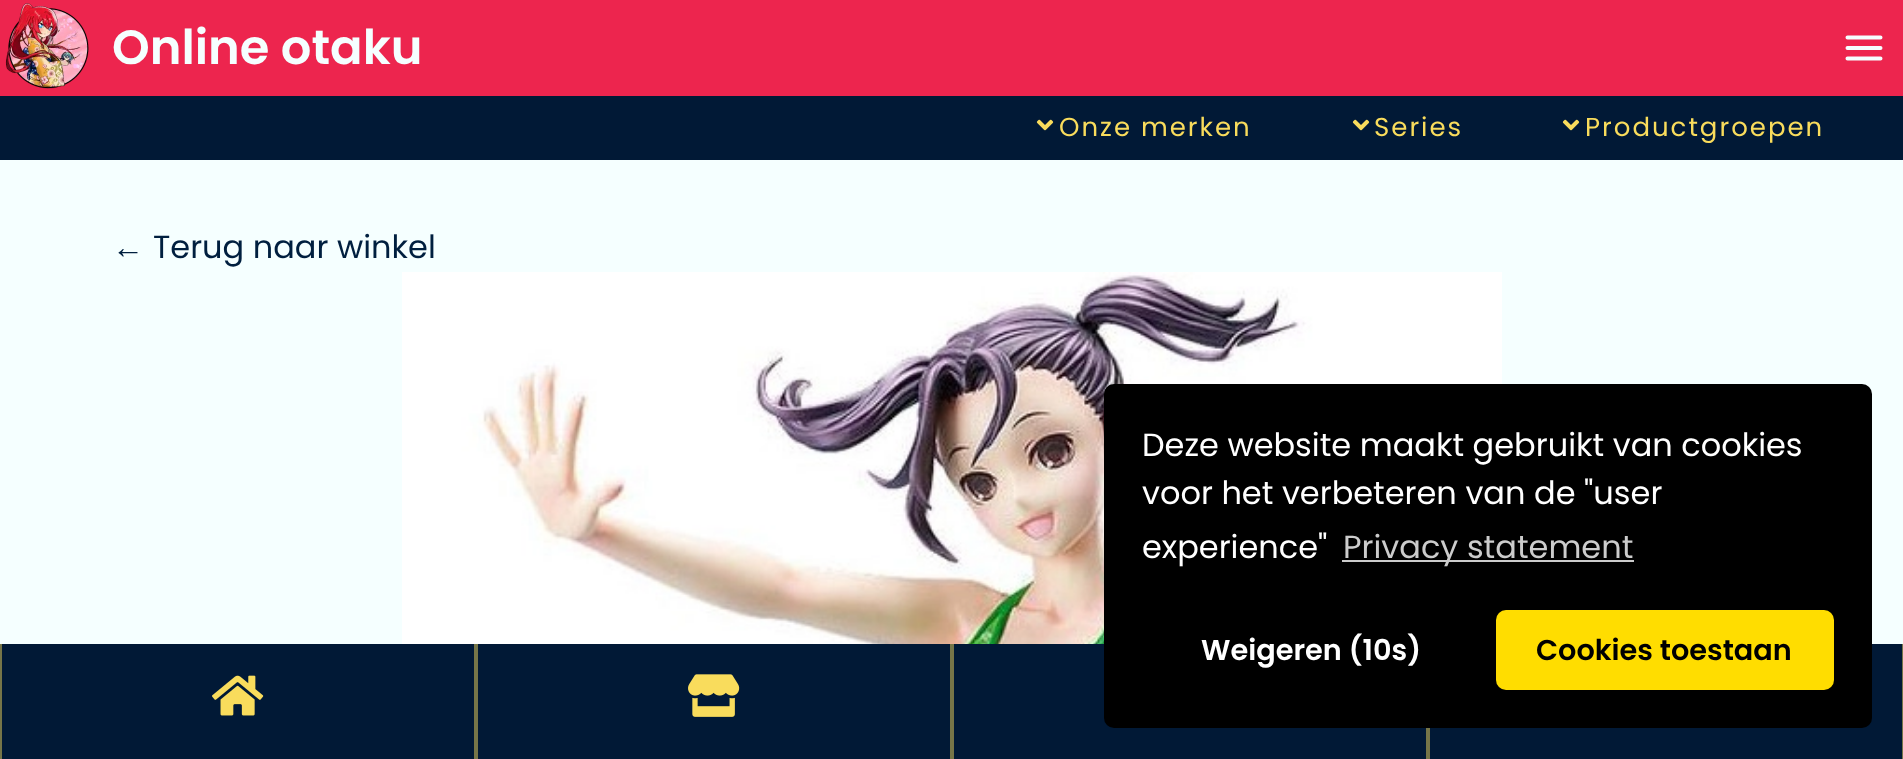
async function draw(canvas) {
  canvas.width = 1903
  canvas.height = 759
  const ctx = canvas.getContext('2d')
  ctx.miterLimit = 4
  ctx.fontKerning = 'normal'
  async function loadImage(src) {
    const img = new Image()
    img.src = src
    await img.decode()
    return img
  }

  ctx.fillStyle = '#ed254e'
  ctx.fillRect(0, 0, 1903, 759)
  ctx.drawImage(await loadImage('image0.png'), 5, 3, 84, 86)
  ctx.font = '600 48px Poppins'
  ctx.fillStyle = '#f5ffff'
  ctx.fillText('Online otaku', 112, 64)
  ctx.beginPath()
  ctx.moveTo(1847.5, 37.5)
  ctx.lineTo(1880.5, 37.5)
  ctx.moveTo(1847.5, 48)
  ctx.lineTo(1880.5, 48)
  ctx.moveTo(1847.5, 58.5)
  ctx.lineTo(1880.5, 58.5)
  ctx.strokeStyle = '#f5ffff'
  ctx.lineWidth = 4
  ctx.lineCap = 'round'
  ctx.lineJoin = 'round'
  ctx.stroke()
  ctx.fillStyle = '#011936'
  ctx.fillRect(0, 96, 1903, 64)
  ctx.drawImage(await loadImage('image1.png'), 1036, 119, 18, 12)
  ctx.letterSpacing = '2px'
  ctx.font = '26px Poppins'
  ctx.fillStyle = '#f9dc5c'
  ctx.fillText('Onze merken', 1059, 136)
  ctx.drawImage(await loadImage('image1.png'), 1352, 119, 18, 12)
  ctx.fillText('Series', 1374, 136)
  ctx.drawImage(await loadImage('image1.png'), 1562, 119, 18, 12)
  ctx.fillText('Productgroepen', 1585, 136)
  ctx.fillStyle = '#f5ffff'
  ctx.fillRect(0, 160, 1903, 484)
  ctx.letterSpacing = '0px'
  ctx.font = '32px Liberation Sans'
  ctx.fillStyle = '#001f3f'
  ctx.fillText('←', 112, 258)
  ctx.font = '32px Poppins'
  ctx.fillText('Terug naar winkel', 153, 258)
  ctx.drawImage(await loadImage('image2.png'), 402, 272, 1100, 372)
  ctx.fillStyle = '#011936'
  ctx.fillRect(2, 644, 1900, 115)
  ctx.fillStyle = '#000'
  ctx.beginPath()
  ctx.roundRect(1104, 384, 768, 344, 10)
  ctx.fill()
  ctx.fillStyle = '#fff'
  ctx.fillText('Deze website maakt gebruikt van cookies', 1142, 456)
  ctx.fillText('voor het verbeteren van de "user', 1142, 504)
  ctx.fillText('experience"', 1142, 558)
  ctx.fillStyle = '#ccc'
  ctx.fillRect(1342, 560, 292, 2)
  ctx.fillText('Privacy statement', 1343, 558)
  ctx.font = '600 28.75px Poppins'
  ctx.fillStyle = '#fff'
  ctx.fillText('Weigeren (10s)', 1201, 660)
  ctx.fillStyle = '#fd0'
  ctx.beginPath()
  ctx.roundRect(1496, 610, 338, 80, 10)
  ctx.fill()
  ctx.fillStyle = '#000'
  ctx.fillText('Cookies toestaan', 1536, 660)
  ctx.fillStyle = '#767548'
  ctx.fillRect(474, 644, 4, 115)
  ctx.fillRect(0, 644, 2, 115)
  ctx.drawImage(await loadImage('image3.png'), 212, 675, 52, 41)
  ctx.fillRect(950, 644, 4, 115)
  ctx.drawImage(await loadImage('image4.png'), 688, 674, 52, 43)
  ctx.fillRect(1426, 728, 4, 31)
  ctx.fillRect(1902, 644, 1, 115)
}

draw(document.querySelector('canvas'))
